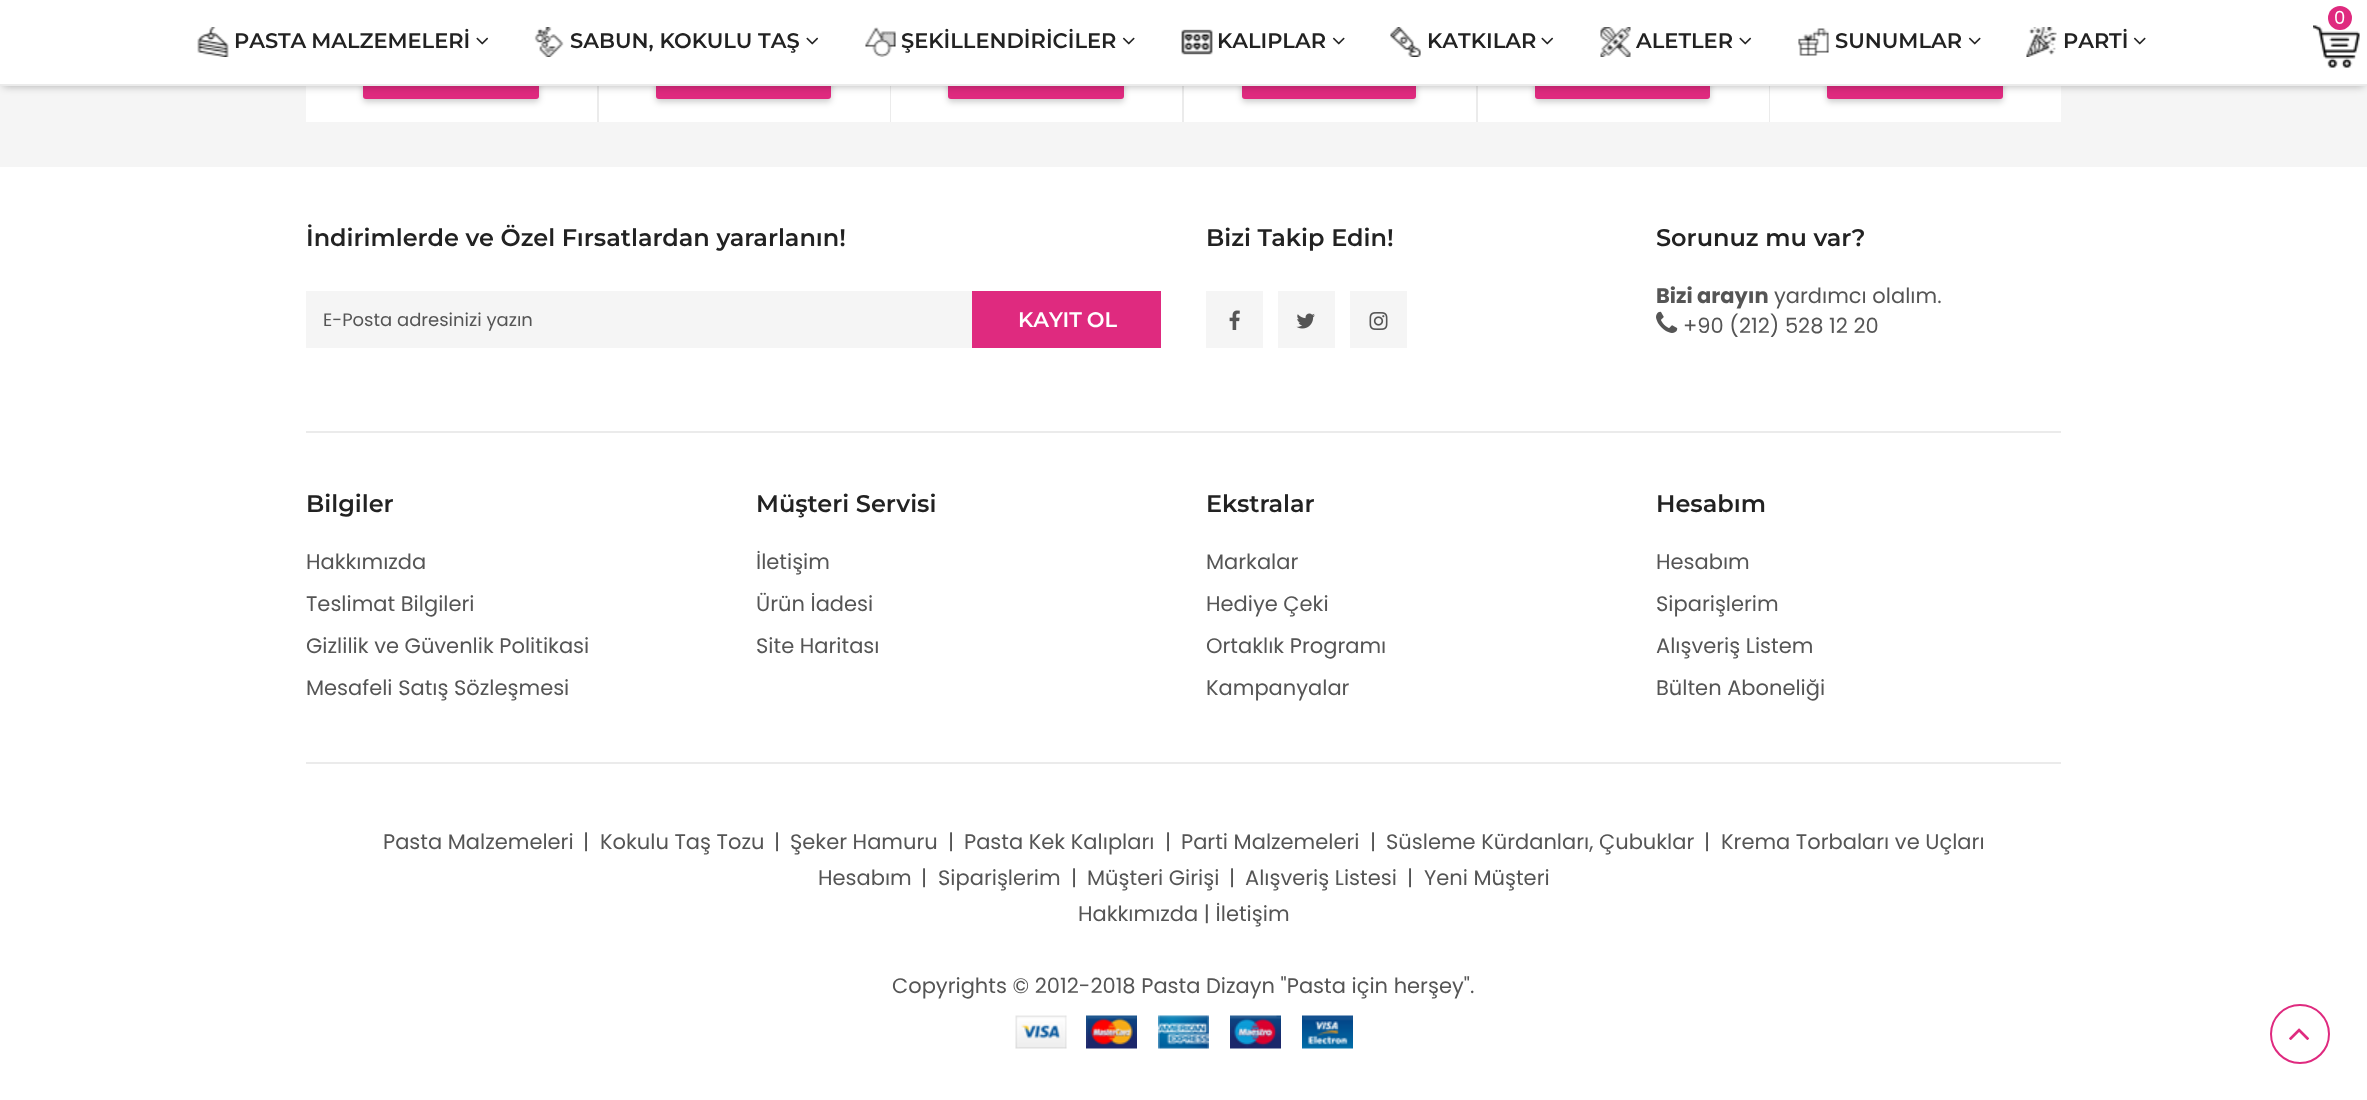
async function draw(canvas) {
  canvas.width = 2367
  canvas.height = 1100
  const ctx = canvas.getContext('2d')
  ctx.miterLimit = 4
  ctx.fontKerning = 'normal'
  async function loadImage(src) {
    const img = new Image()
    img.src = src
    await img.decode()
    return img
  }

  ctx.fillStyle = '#f5f5f5'
  ctx.fillRect(0, 0, 2367, 1100)
  ctx.fillStyle = '#fff'
  ctx.fillRect(306, 86, 1755, 36)
  ctx.fillStyle = '#00000033'
  ctx.filter = 'blur(3px)'
  ctx.beginPath()
  ctx.roundRect(363, 39, 176, 63, 3)
  ctx.fill()
  ctx.filter = 'none'
  ctx.fillStyle = '#df2a7f'
  ctx.beginPath()
  ctx.roundRect(363, 36, 176, 63, 3)
  ctx.fill()
  ctx.fillStyle = '#ebebeb'
  ctx.fillRect(597, 86, 2, 36)
  ctx.fillStyle = '#00000033'
  ctx.filter = 'blur(3px)'
  ctx.beginPath()
  ctx.roundRect(656, 39, 175, 63, 3)
  ctx.fill()
  ctx.filter = 'none'
  ctx.fillStyle = '#df2a7f'
  ctx.beginPath()
  ctx.roundRect(656, 36, 175, 63, 3)
  ctx.fill()
  ctx.fillStyle = '#ebebeb'
  ctx.fillRect(890, 86, 1, 36)
  ctx.fillStyle = '#00000033'
  ctx.filter = 'blur(3px)'
  ctx.beginPath()
  ctx.roundRect(948, 39, 176, 63, 3)
  ctx.fill()
  ctx.filter = 'none'
  ctx.fillStyle = '#df2a7f'
  ctx.beginPath()
  ctx.roundRect(948, 36, 176, 63, 3)
  ctx.fill()
  ctx.fillStyle = '#ebebeb'
  ctx.fillRect(1182, 86, 2, 36)
  ctx.fillStyle = '#00000033'
  ctx.filter = 'blur(3px)'
  ctx.beginPath()
  ctx.roundRect(1242, 39, 174, 63, 3)
  ctx.fill()
  ctx.filter = 'none'
  ctx.fillStyle = '#df2a7f'
  ctx.beginPath()
  ctx.roundRect(1242, 36, 174, 63, 3)
  ctx.fill()
  ctx.fillStyle = '#ebebeb'
  ctx.fillRect(1476, 86, 2, 36)
  ctx.fillStyle = '#00000033'
  ctx.filter = 'blur(3px)'
  ctx.beginPath()
  ctx.roundRect(1535, 39, 175, 63, 3)
  ctx.fill()
  ctx.filter = 'none'
  ctx.fillStyle = '#df2a7f'
  ctx.beginPath()
  ctx.roundRect(1535, 36, 175, 63, 3)
  ctx.fill()
  ctx.fillStyle = '#ebebeb'
  ctx.fillRect(1769, 86, 1, 36)
  ctx.fillStyle = '#00000033'
  ctx.filter = 'blur(3px)'
  ctx.beginPath()
  ctx.roundRect(1827, 39, 176, 63, 3)
  ctx.fill()
  ctx.filter = 'none'
  ctx.fillStyle = '#df2a7f'
  ctx.beginPath()
  ctx.roundRect(1827, 36, 176, 63, 3)
  ctx.fill()
  ctx.fillStyle = '#0000004d'
  ctx.filter = 'blur(4px)'
  ctx.beginPath()
  ctx.rect(3, 6, 2361, 80)
  ctx.fill()
  ctx.filter = 'none'
  ctx.fillStyle = '#fff'
  ctx.fillRect(0, 0, 2367, 84)
  ctx.fillStyle = '#ebebeb'
  ctx.fillRect(0, 84, 2367, 2)
  ctx.drawImage(await loadImage('image0.png'), 2313, 25, 47, 43)
  ctx.fillStyle = '#df2a7f'
  ctx.beginPath()
  ctx.arc(2340, 18, 12, 0, 2 * Math.PI)
  ctx.fill()
  ctx.font = '18px Poppins'
  ctx.fillStyle = '#fff'
  ctx.fillText('0', 2334, 24)
  ctx.drawImage(await loadImage('image1.png'), 197, 27, 32, 30)
  ctx.wordSpacing = '-1px'
  ctx.font = '600 21px Montserrat'
  ctx.fillStyle = '#222'
  ctx.fillText('PASTA MALZEMELERİ', 234, 48)
  ctx.drawImage(await loadImage('image2.png'), 476, 37, 13, 8)
  ctx.drawImage(await loadImage('image3.png'), 534, 27, 30, 30)
  ctx.wordSpacing = '0px'
  ctx.fillText('SABUN, KOKULU TAŞ', 570, 48)
  ctx.drawImage(await loadImage('image2.png'), 806, 37, 13, 8)
  ctx.drawImage(await loadImage('image4.png'), 865, 27, 31, 30)
  ctx.fillText('ŞEKİLLENDİRİCİLER', 901, 48)
  ctx.drawImage(await loadImage('image5.png'), 1122, 37, 13, 8)
  ctx.drawImage(await loadImage('image6.png'), 1181, 29, 32, 26)
  ctx.fillText('KALIPLAR', 1217, 48)
  ctx.drawImage(await loadImage('image5.png'), 1332, 37, 13, 8)
  ctx.drawImage(await loadImage('image7.png'), 1390, 27, 31, 30)
  ctx.fillText('KATKILAR', 1427, 48)
  ctx.drawImage(await loadImage('image2.png'), 1541, 37, 13, 8)
  ctx.drawImage(await loadImage('image8.png'), 1600, 27, 31, 30)
  ctx.fillText('ALETLER', 1636, 48)
  ctx.drawImage(await loadImage('image2.png'), 1739, 37, 13, 8)
  ctx.drawImage(await loadImage('image9.png'), 1798, 28, 31, 28)
  ctx.fillText('SUNUMLAR', 1835, 48)
  ctx.drawImage(await loadImage('image5.png'), 1968, 37, 13, 8)
  ctx.drawImage(await loadImage('image10.png'), 2026, 27, 31, 30)
  ctx.fillText('PARTİ', 2063, 48)
  ctx.drawImage(await loadImage('image5.png'), 2133, 37, 13, 8)
  ctx.fillStyle = '#fff'
  ctx.fillRect(0, 167, 2367, 933)
  ctx.font = '600 24px Montserrat'
  ctx.fillStyle = '#222'
  ctx.fillText('İndirimlerde ve Özel Fırsatlardan yararlanın!', 306, 246)
  ctx.fillStyle = '#f5f5f5'
  ctx.fillRect(306, 291, 666, 57)
  ctx.font = '18px Poppins'
  ctx.fillStyle = '#555'
  ctx.fillText('E-Posta adresinizi yazın', 323, 326)
  ctx.fillStyle = '#df2a7f'
  ctx.fillRect(972, 291, 189, 57)
  ctx.wordSpacing = '-1px'
  ctx.font = '600 21px Montserrat'
  ctx.fillStyle = '#fff'
  ctx.fillText('KAYIT OL', 1018, 327)
  ctx.wordSpacing = '0px'
  ctx.font = '600 24px Montserrat'
  ctx.fillStyle = '#222'
  ctx.fillText('Bizi Takip Edin!', 1206, 246)
  ctx.fillStyle = '#f5f5f5'
  ctx.fillRect(1206, 291, 57, 57)
  ctx.drawImage(await loadImage('image11.png'), 1229, 310, 11, 20)
  ctx.fillRect(1278, 291, 57, 57)
  ctx.drawImage(await loadImage('image12.png'), 1296, 313, 19, 16)
  ctx.fillRect(1350, 291, 57, 57)
  ctx.drawImage(await loadImage('image13.png'), 1369, 312, 19, 18)
  ctx.fillStyle = '#222'
  ctx.fillText('Sorunuz mu var?', 1656, 246)
  ctx.font = 'bold 21px Poppins'
  ctx.fillStyle = '#555'
  ctx.fillText('Bizi arayın', 1656, 303)
  ctx.font = '21px Poppins'
  ctx.fillText('yardımcı olalım.', 1774, 303)
  ctx.drawImage(await loadImage('image14.png'), 1656, 311, 22, 22)
  ctx.fillText('+90 (212) 528 12 20', 1683, 333)
  ctx.fillStyle = '#ebebeb'
  ctx.fillRect(306, 431, 1755, 2)
  ctx.font = '600 24px Montserrat'
  ctx.fillStyle = '#222'
  ctx.fillText('Bilgiler', 306, 512)
  ctx.font = '21px Poppins'
  ctx.fillStyle = '#555'
  ctx.fillText('Hakkımızda', 306, 569)
  ctx.fillText('Teslimat Bilgileri', 306, 611)
  ctx.fillText('Gizlilik ve Güvenlik Politikasi', 306, 653)
  ctx.fillText('Mesafeli Satış Sözleşmesi', 306, 695)
  ctx.font = '600 24px Montserrat'
  ctx.fillStyle = '#222'
  ctx.fillText('Müşteri Servisi', 756, 512)
  ctx.font = '21px Poppins'
  ctx.fillStyle = '#555'
  ctx.fillText('İletişim', 756, 569)
  ctx.fillText('Ürün İadesi', 756, 611)
  ctx.fillText('Site Haritası', 756, 653)
  ctx.font = '600 24px Montserrat'
  ctx.fillStyle = '#222'
  ctx.fillText('Ekstralar', 1206, 512)
  ctx.font = '21px Poppins'
  ctx.fillStyle = '#555'
  ctx.fillText('Markalar', 1206, 569)
  ctx.fillText('Hediye Çeki', 1206, 611)
  ctx.fillText('Ortaklık Programı', 1206, 653)
  ctx.fillText('Kampanyalar', 1206, 695)
  ctx.font = '600 24px Montserrat'
  ctx.fillStyle = '#222'
  ctx.fillText('Hesabım', 1656, 512)
  ctx.font = '21px Poppins'
  ctx.fillStyle = '#555'
  ctx.fillText('Hesabım', 1656, 569)
  ctx.fillText('Siparişlerim', 1656, 611)
  ctx.fillText('Alışveriş Listem', 1656, 653)
  ctx.fillText('Bülten Aboneliği', 1656, 695)
  ctx.fillStyle = '#ebebeb'
  ctx.fillRect(306, 762, 1755, 2)
  ctx.fillStyle = '#555'
  ctx.fillText('Pasta Malzemeleri', 383, 849)
  ctx.fillText('|', 583, 849)
  ctx.fillText('Kokulu Taş Tozu', 600, 849)
  ctx.fillText('|', 774, 849)
  ctx.fillText('Şeker Hamuru', 790, 849)
  ctx.fillText('|', 948, 849)
  ctx.fillText('Pasta Kek Kalıpları', 964, 849)
  ctx.fillText('|', 1165, 849)
  ctx.fillText('Parti Malzemeleri', 1181, 849)
  ctx.fillText('|', 1370, 849)
  ctx.fillText('Süsleme Kürdanları, Çubuklar', 1386, 849)
  ctx.fillText('|', 1704, 849)
  ctx.fillText('Krema Torbaları ve Uçları', 1721, 849)
  ctx.fillText('Hesabım', 818, 885)
  ctx.fillText('|', 921, 885)
  ctx.fillText('Siparişlerim', 938, 885)
  ctx.fillText('|', 1071, 885)
  ctx.fillText('Müşteri Girişi', 1087, 885)
  ctx.fillText('|', 1229, 885)
  ctx.fillText('Alışveriş Listesi', 1245, 885)
  ctx.fillText('|', 1407, 885)
  ctx.fillText('Yeni Müşteri', 1424, 885)
  ctx.fillText('Hakkımızda | İletişim', 1078, 921)
  ctx.fillText('Copyrights © 2012-2018 Pasta Dizayn "Pasta için herşey".', 892, 993)
  ctx.drawImage(await loadImage('image15.png'), 1015, 1015, 52, 34)
  ctx.drawImage(await loadImage('image16.png'), 1086, 1015, 51, 34)
  ctx.drawImage(await loadImage('image17.png'), 1158, 1015, 51, 34)
  ctx.drawImage(await loadImage('image18.png'), 1230, 1015, 51, 34)
  ctx.drawImage(await loadImage('image19.png'), 1302, 1015, 51, 34)
  ctx.beginPath()
  ctx.arc(2300, 1034, 29, 0, 2 * Math.PI)
  ctx.strokeStyle = '#df2a7f'
  ctx.lineWidth = 2
  ctx.stroke()
  ctx.drawImage(await loadImage('image20.png'), 2289, 1028, 21, 12)
}

draw(document.querySelector('canvas'))
